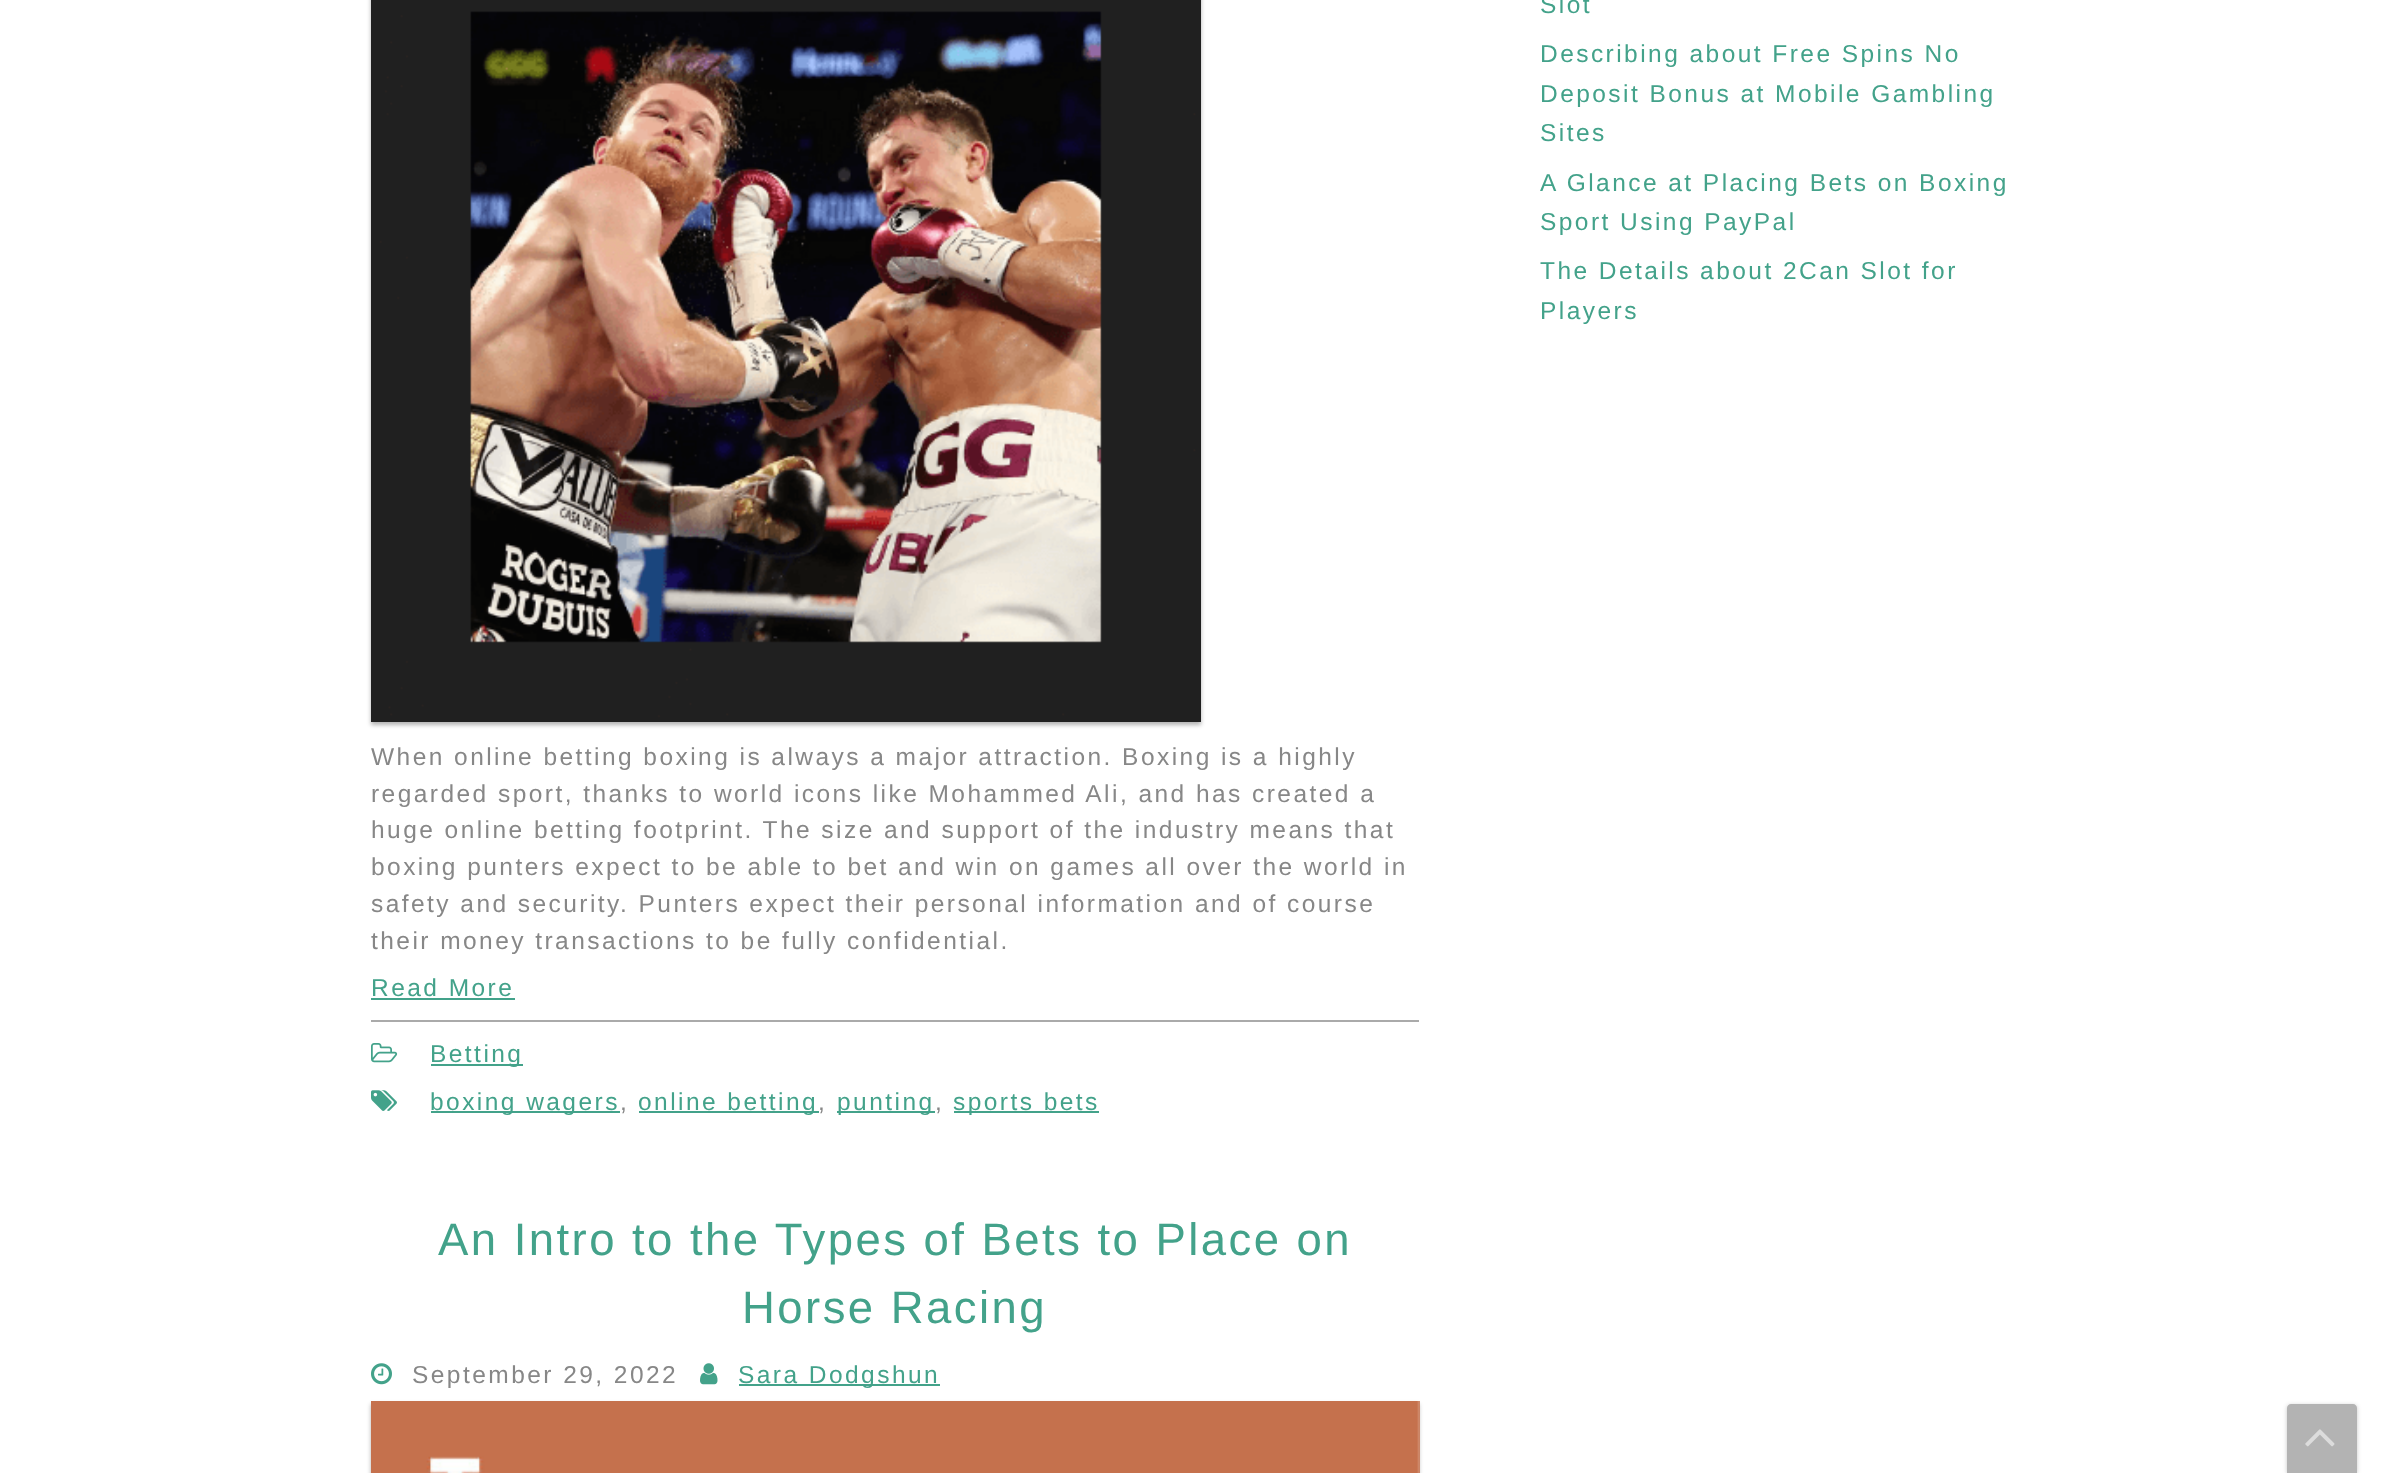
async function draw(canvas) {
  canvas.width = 2404
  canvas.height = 1473
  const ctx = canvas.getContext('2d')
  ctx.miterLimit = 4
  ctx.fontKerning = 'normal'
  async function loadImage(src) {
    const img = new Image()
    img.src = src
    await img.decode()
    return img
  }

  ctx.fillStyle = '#fff'
  ctx.fillRect(0, 0, 2404, 1473)
  ctx.letterSpacing = '2.45px'
  ctx.font = '24.5px Liberation Sans'
  ctx.fillStyle = '#43a28a'
  ctx.fillText('Slot', 1540, 13)
  ctx.fillText('Describing about Free Spins No', 1540, 62)
  ctx.fillText('Deposit Bonus at Mobile Gambling', 1540, 102)
  ctx.fillText('Sites', 1540, 141)
  ctx.fillText('A Glance at Placing Bets on Boxing', 1540, 191)
  ctx.fillText('Sport Using PayPal', 1540, 230)
  ctx.fillText('The Details about 2Can Slot for', 1540, 279)
  ctx.fillText('Players', 1540, 319)
  ctx.fillStyle = '#0000004d'
  ctx.filter = 'blur(2px)'
  ctx.beginPath()
  ctx.rect(371, -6, 830, 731)
  ctx.fill()
  ctx.filter = 'none'
  ctx.drawImage(await loadImage('image0.png'), 371, 0, 830, 722)
  ctx.fillStyle = '#878787'
  ctx.fillText('When online betting boxing is always a major attraction. Boxing is a highly', 371, 765)
  ctx.fillText('regarded sport, thanks to world icons like Mohammed Ali, and has created a', 371, 802)
  ctx.fillText('huge online betting footprint. The size and support of the industry means that', 371, 838)
  ctx.fillText('boxing punters expect to be able to bet and win on games all over the world in', 371, 875)
  ctx.fillText('safety and security. Punters expect their personal information and of course', 371, 912)
  ctx.fillText('their money transactions to be fully confidential.', 371, 949)
  ctx.fillStyle = '#43a28a'
  ctx.fillText('Read More', 371, 996)
  ctx.fillRect(371, 998, 144, 2)
  ctx.fillStyle = '#aaa'
  ctx.fillRect(371, 1020, 1048, 2)
  ctx.drawImage(await loadImage('image1.png'), 371, 1043, 27, 20)
  ctx.fillStyle = '#43a28a'
  ctx.fillRect(431, 1064, 92, 2)
  ctx.fillText('Betting', 430, 1062)
  ctx.drawImage(await loadImage('image2.png'), 371, 1090, 26, 21)
  ctx.fillRect(431, 1111, 189, 2)
  ctx.fillText('boxing wagers', 430, 1110)
  ctx.fillStyle = '#878787'
  ctx.fillText(',', 620, 1110)
  ctx.fillStyle = '#43a28a'
  ctx.fillRect(639, 1111, 180, 2)
  ctx.fillText('online betting', 638, 1110)
  ctx.fillStyle = '#878787'
  ctx.fillText(',', 818, 1110)
  ctx.fillStyle = '#43a28a'
  ctx.fillRect(837, 1111, 98, 2)
  ctx.fillText('punting', 837, 1110)
  ctx.fillStyle = '#878787'
  ctx.fillText(',', 935, 1110)
  ctx.fillStyle = '#43a28a'
  ctx.fillRect(954, 1111, 145, 2)
  ctx.fillText('sports bets', 953, 1110)
  ctx.font = '45.5px Liberation Sans'
  ctx.fillText('An Intro to the Types of Bets to Place on', 438, 1255)
  ctx.fillText('Horse Racing', 742, 1323)
  ctx.drawImage(await loadImage('image3.png'), 371, 1363, 21, 22)
  ctx.font = '24.5px Liberation Sans'
  ctx.fillStyle = '#878787'
  ctx.fillText('September 29, 2022', 412, 1383)
  ctx.drawImage(await loadImage('image4.png'), 700, 1363, 18, 22)
  ctx.fillStyle = '#43a28a'
  ctx.fillRect(739, 1384, 201, 2)
  ctx.fillText('Sara Dodgshun', 738, 1383)
  ctx.save()
  ctx.beginPath()
  ctx.moveTo(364, 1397)
  ctx.lineTo(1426, 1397)
  ctx.lineTo(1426, 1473)
  ctx.lineTo(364, 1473)
  ctx.closePath()
  ctx.moveTo(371, 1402)
  ctx.lineTo(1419, 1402)
  ctx.lineTo(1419, 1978)
  ctx.lineTo(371, 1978)
  ctx.closePath()
  ctx.clip('evenodd')
  ctx.fillStyle = '#0000004d'
  ctx.filter = 'blur(2px)'
  ctx.beginPath()
  ctx.rect(371, 1404, 1048, 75)
  ctx.fill()
  ctx.filter = 'none'
  ctx.restore()
  ctx.drawImage(await loadImage('image5.png'), 371, 1401, 1049, 72)
  ctx.fillStyle = '#1a1a1a40'
  ctx.filter = 'blur(2px)'
  ctx.beginPath()
  ctx.roundRect(2287, 1405, 70, 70, 4)
  ctx.fill()
  ctx.filter = 'none'
  ctx.fillStyle = '#b3b3b3'
  ctx.beginPath()
  ctx.moveTo(2291, 1404)
  ctx.lineTo(2353, 1404)
  ctx.bezierCurveTo(2355, 1404, 2357, 1406, 2357, 1408)
  ctx.lineTo(2357, 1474)
  ctx.lineTo(2287, 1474)
  ctx.lineTo(2287, 1408)
  ctx.bezierCurveTo(2287, 1406, 2289, 1404, 2291, 1404)
  ctx.closePath()
  ctx.fill()
  ctx.drawImage(await loadImage('image6.png'), 2305, 1429, 30, 18)
}

draw(document.querySelector('canvas'))
